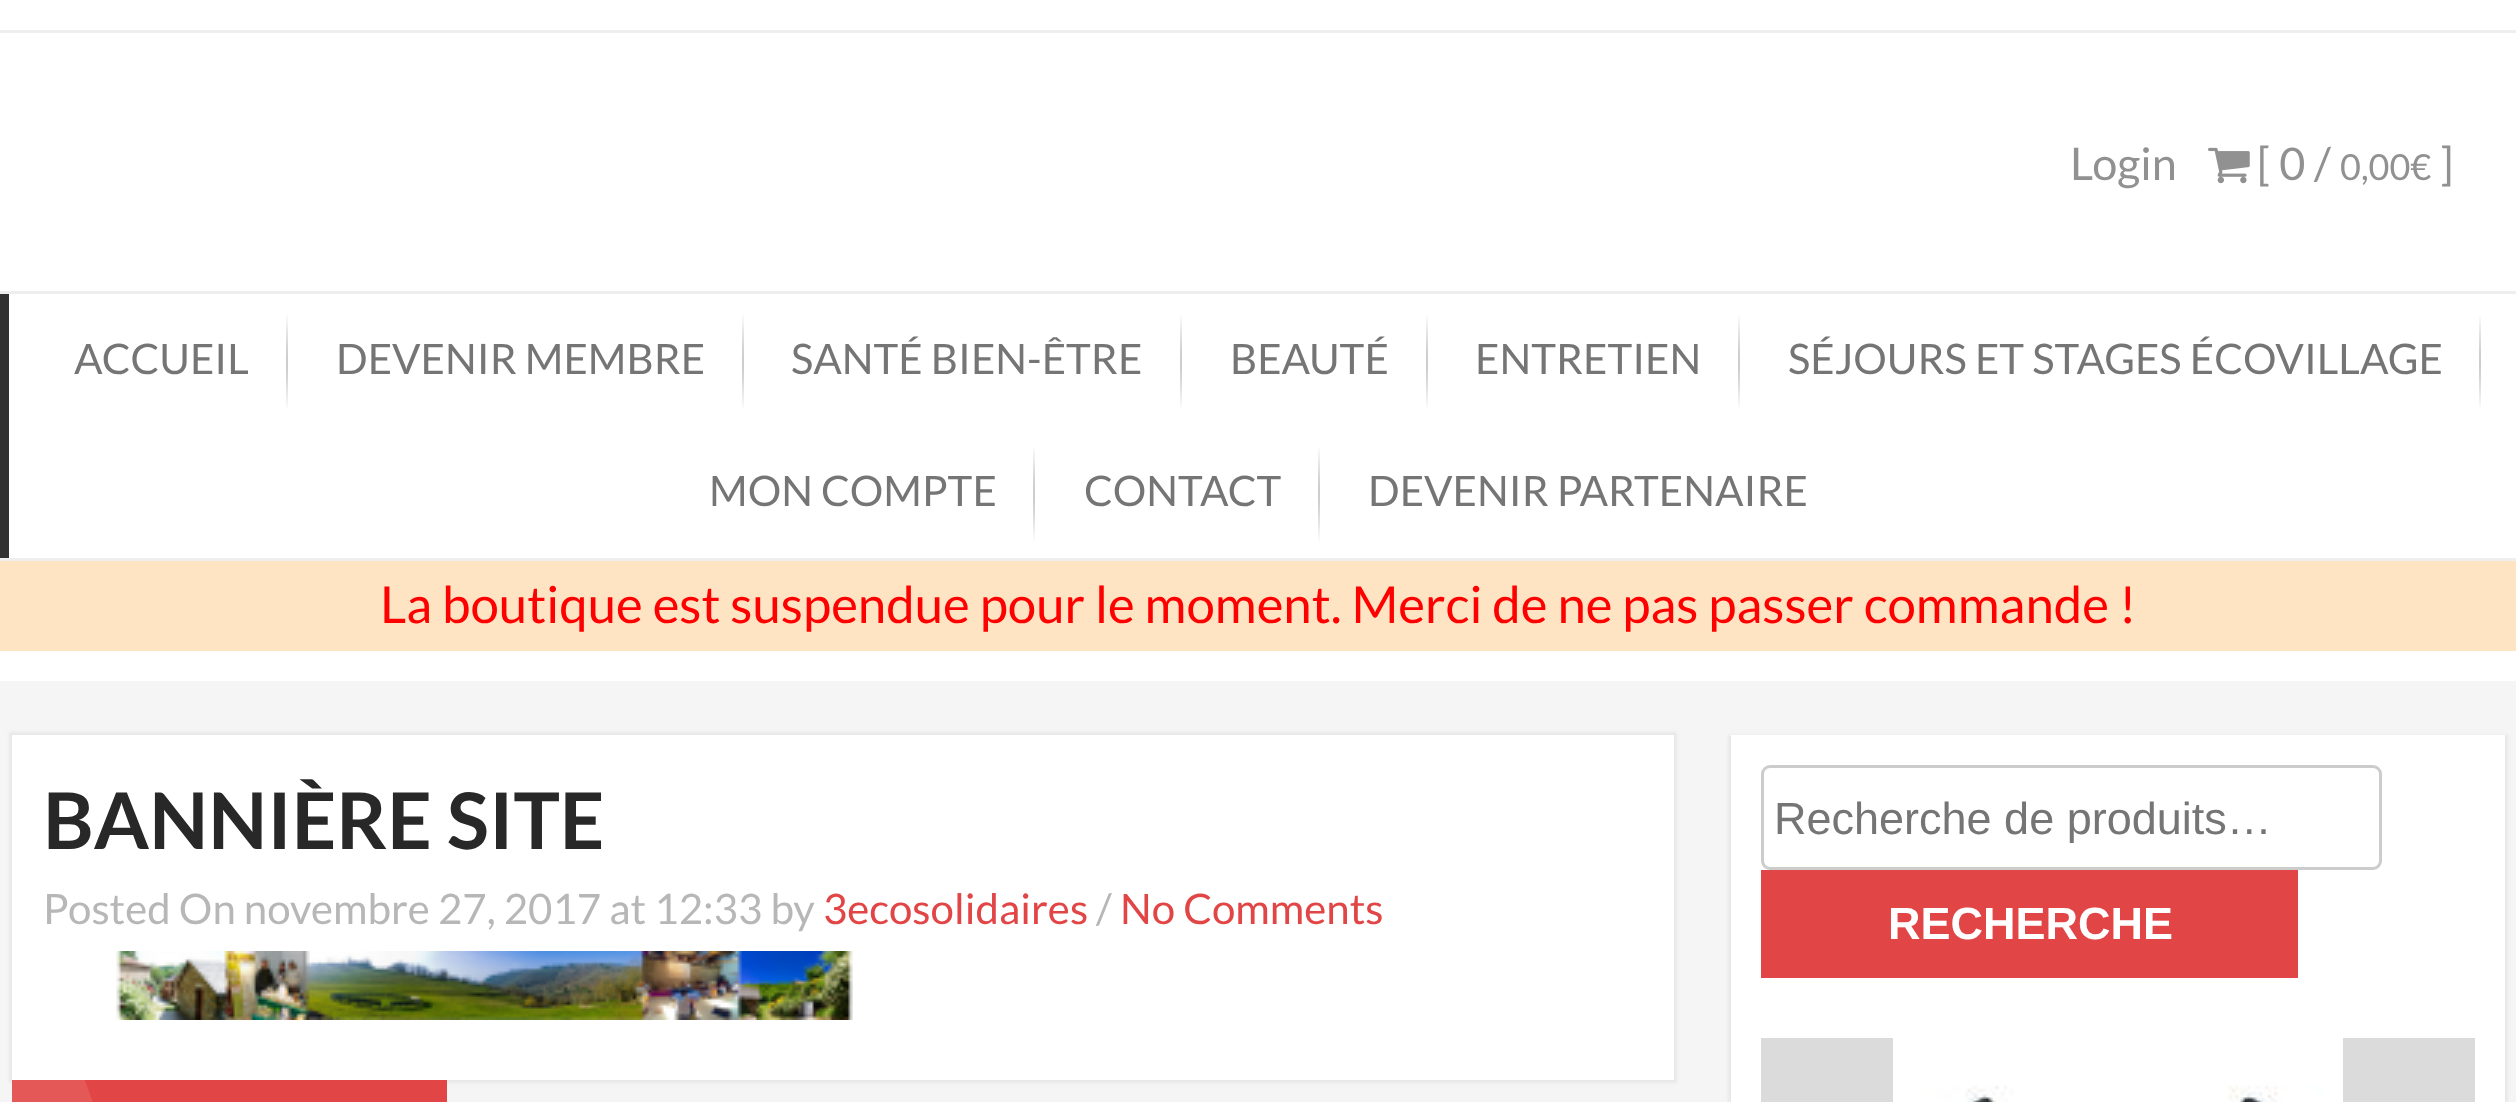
async function draw(canvas) {
  canvas.width = 2516
  canvas.height = 1102
  const ctx = canvas.getContext('2d')
  ctx.miterLimit = 4
  ctx.fontKerning = 'normal'
  async function loadImage(src) {
    const img = new Image()
    img.src = src
    await img.decode()
    return img
  }
  let gradient

  ctx.fillStyle = '#fff'
  ctx.fillRect(0, 0, 2516, 1102)
  ctx.fillStyle = '#eee'
  ctx.fillRect(0, 30, 2516, 3)
  ctx.font = '45px Lato'
  ctx.fillStyle = '#919191'
  ctx.fillText('Login', 2070, 180)
  ctx.drawImage(await loadImage('image0.png'), 2208, 147, 42, 37)
  ctx.fillText('[ 0 /', 2257, 180)
  ctx.font = '36px Lato'
  ctx.fillText('0,00€', 2340, 180)
  ctx.font = '45px Lato'
  ctx.fillText(']', 2440, 180)
  ctx.fillStyle = '#eee'
  ctx.fillRect(0, 291, 2516, 3)
  ctx.fillRect(0, 558, 2516, 3)
  ctx.fillStyle = '#313131'
  ctx.fillRect(0, 294, 9, 264)
  ctx.font = '42px Lato'
  ctx.fillStyle = '#757575'
  ctx.fillText('ACCUEIL', 74, 374)
  gradient = ctx.createRadialGradient(287, 10.27, 0, 287, 10.27, 2.1)
  gradient.addColorStop(0, '#b3b3b3')
  gradient.addColorStop(0.7, '#fff')
  ctx.fillStyle = gradient
  ctx.beginPath()
  ctx.rect(286, 309, 2, 105)
  ctx.save()
  ctx.clip()
  ctx.scale(1, 74 / 2.1)
  ctx.fillRect(0, 0, 2516, 32)
  ctx.restore()
  ctx.fillStyle = '#757575'
  ctx.fillText('DEVENIR MEMBRE', 336, 374)
  gradient = ctx.createRadialGradient(743, 10.27, 0, 743, 10.27, 2.1)
  gradient.addColorStop(0, '#b3b3b3')
  gradient.addColorStop(0.7, '#fff')
  ctx.fillStyle = gradient
  ctx.beginPath()
  ctx.rect(742, 309, 2, 105)
  ctx.save()
  ctx.clip()
  ctx.scale(1, 74 / 2.1)
  ctx.fillRect(0, 0, 2516, 32)
  ctx.restore()
  ctx.fillStyle = '#757575'
  ctx.fillText('SANTÉ BIEN-ÊTRE', 791, 374)
  gradient = ctx.createRadialGradient(1181, 10.27, 0, 1181, 10.27, 2.1)
  gradient.addColorStop(0, '#b3b3b3')
  gradient.addColorStop(0.7, '#fff')
  ctx.fillStyle = gradient
  ctx.beginPath()
  ctx.rect(1180, 309, 2, 105)
  ctx.save()
  ctx.clip()
  ctx.scale(1, 74 / 2.1)
  ctx.fillRect(0, 0, 2516, 32)
  ctx.restore()
  ctx.fillStyle = '#757575'
  ctx.fillText('BEAUTÉ', 1230, 374)
  gradient = ctx.createRadialGradient(1427, 10.27, 0, 1427, 10.27, 2.1)
  gradient.addColorStop(0, '#b3b3b3')
  gradient.addColorStop(0.7, '#fff')
  ctx.fillStyle = gradient
  ctx.beginPath()
  ctx.rect(1426, 309, 2, 105)
  ctx.save()
  ctx.clip()
  ctx.scale(1, 74 / 2.1)
  ctx.fillRect(0, 0, 2516, 32)
  ctx.restore()
  ctx.fillStyle = '#757575'
  ctx.fillText('ENTRETIEN', 1475, 374)
  gradient = ctx.createRadialGradient(1739, 10.27, 0, 1739, 10.27, 2.1)
  gradient.addColorStop(0, '#b3b3b3')
  gradient.addColorStop(0.7, '#fff')
  ctx.fillStyle = gradient
  ctx.beginPath()
  ctx.rect(1738, 309, 2, 105)
  ctx.save()
  ctx.clip()
  ctx.scale(1, 74 / 2.1)
  ctx.fillRect(0, 0, 2516, 32)
  ctx.restore()
  ctx.fillStyle = '#757575'
  ctx.fillText('SÉJOURS ET STAGES ÉCOVILLAGE', 1788, 374)
  gradient = ctx.createRadialGradient(2480, 10.27, 0, 2480, 10.27, 2.1)
  gradient.addColorStop(0, '#b3b3b3')
  gradient.addColorStop(0.7, '#fff')
  ctx.fillStyle = gradient
  ctx.beginPath()
  ctx.rect(2479, 309, 2, 105)
  ctx.save()
  ctx.clip()
  ctx.scale(1, 74 / 2.1)
  ctx.fillRect(0, 0, 2516, 32)
  ctx.restore()
  ctx.fillStyle = '#757575'
  ctx.fillText('MON COMPTE', 709, 506)
  gradient = ctx.createRadialGradient(1034, 14.02, 0, 1034, 14.02, 2.1)
  gradient.addColorStop(0, '#b3b3b3')
  gradient.addColorStop(0.7, '#fff')
  ctx.fillStyle = gradient
  ctx.beginPath()
  ctx.rect(1033, 441, 2, 105)
  ctx.save()
  ctx.clip()
  ctx.scale(1, 74 / 2.1)
  ctx.fillRect(0, 0, 2516, 32)
  ctx.restore()
  ctx.fillStyle = '#757575'
  ctx.fillText('CONTACT', 1084, 506)
  gradient = ctx.createRadialGradient(1319, 14.02, 0, 1319, 14.02, 2.1)
  gradient.addColorStop(0, '#b3b3b3')
  gradient.addColorStop(0.7, '#fff')
  ctx.fillStyle = gradient
  ctx.beginPath()
  ctx.rect(1318, 441, 2, 105)
  ctx.save()
  ctx.clip()
  ctx.scale(1, 74 / 2.1)
  ctx.fillRect(0, 0, 2516, 32)
  ctx.restore()
  ctx.fillStyle = '#757575'
  ctx.fillText('DEVENIR PARTENAIRE', 1368, 506)
  ctx.fillStyle = '#ffe4c4'
  ctx.fillRect(0, 561, 2516, 90)
  ctx.font = '51px Lato'
  ctx.fillStyle = '#f00'
  ctx.fillText('La boutique est suspendue pour le moment. Merci de ne pas passer commande !', 380, 623)
  ctx.fillStyle = '#f5f5f5'
  ctx.fillRect(0, 681, 2516, 421)
  ctx.fillStyle = '#0000000d'
  ctx.filter = 'blur(1.5px)'
  ctx.beginPath()
  ctx.rect(9, 732, 1668, 351)
  ctx.fill()
  ctx.filter = 'none'
  ctx.fillStyle = '#fff'
  ctx.fillRect(12, 735, 1662, 345)
  ctx.font = 'bold 78px Lato'
  ctx.fillStyle = '#282828'
  ctx.fillText('BANNIÈRE SITE', 43, 849)
  ctx.font = '42px Lato'
  ctx.fillStyle = '#b8b7b7'
  ctx.fillText('Posted On novembre 27, 2017 at 12:33 by', 43, 924)
  ctx.fillStyle = '#e24545'
  ctx.fillText('3ecosolidaires', 823, 924)
  ctx.fillStyle = '#b8b7b7'
  ctx.fillText('/', 1096, 924)
  ctx.fillStyle = '#e24545'
  ctx.fillText('No Comments', 1120, 924)
  ctx.drawImage(await loadImage('image1.png'), 116, 951, 737, 69)
  ctx.fillRect(84, 1080, 363, 22)
  ctx.save()
  ctx.beginPath()
  ctx.rect(12, 1080, 435, 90)
  ctx.clip()
  ctx.fillStyle = '#e55858'
  ctx.beginPath()
  ctx.moveTo(58, 1006)
  ctx.lineTo(140, 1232)
  ctx.lineTo(-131, 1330)
  ctx.lineTo(-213, 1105)
  ctx.closePath()
  ctx.fill()
  ctx.restore()
  ctx.fillStyle = '#0000000d'
  ctx.filter = 'blur(1.5px)'
  ctx.beginPath()
  ctx.rect(1728, 735, 780, 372)
  ctx.fill()
  ctx.filter = 'none'
  ctx.fillStyle = '#fff'
  ctx.fillRect(1731, 735, 774, 367)
  ctx.beginPath()
  ctx.roundRect(1762.5, 766.5, 618, 102, 7.5)
  ctx.strokeStyle = '#ccc'
  ctx.lineWidth = 3
  ctx.stroke()
  ctx.save()
  ctx.beginPath()
  ctx.rect(1773, 792, 555, 51)
  ctx.clip()
  ctx.font = '45px Liberation Sans'
  ctx.fillStyle = '#757575'
  ctx.fillText('Recherche de produits…', 1774, 834)
  ctx.restore()
  ctx.fillStyle = '#e24545'
  ctx.fillRect(1761, 870, 537, 108)
  ctx.font = 'bold 45px Liberation Sans'
  ctx.fillStyle = '#fff'
  ctx.fillText('RECHERCHE', 1888, 939)
  ctx.fillStyle = '#dbdbdb'
  ctx.fillRect(1761, 1038, 714, 64)
  ctx.drawImage(await loadImage('image2.png'), 1893, 1038, 450, 64)
}

draw(document.querySelector('canvas'))
